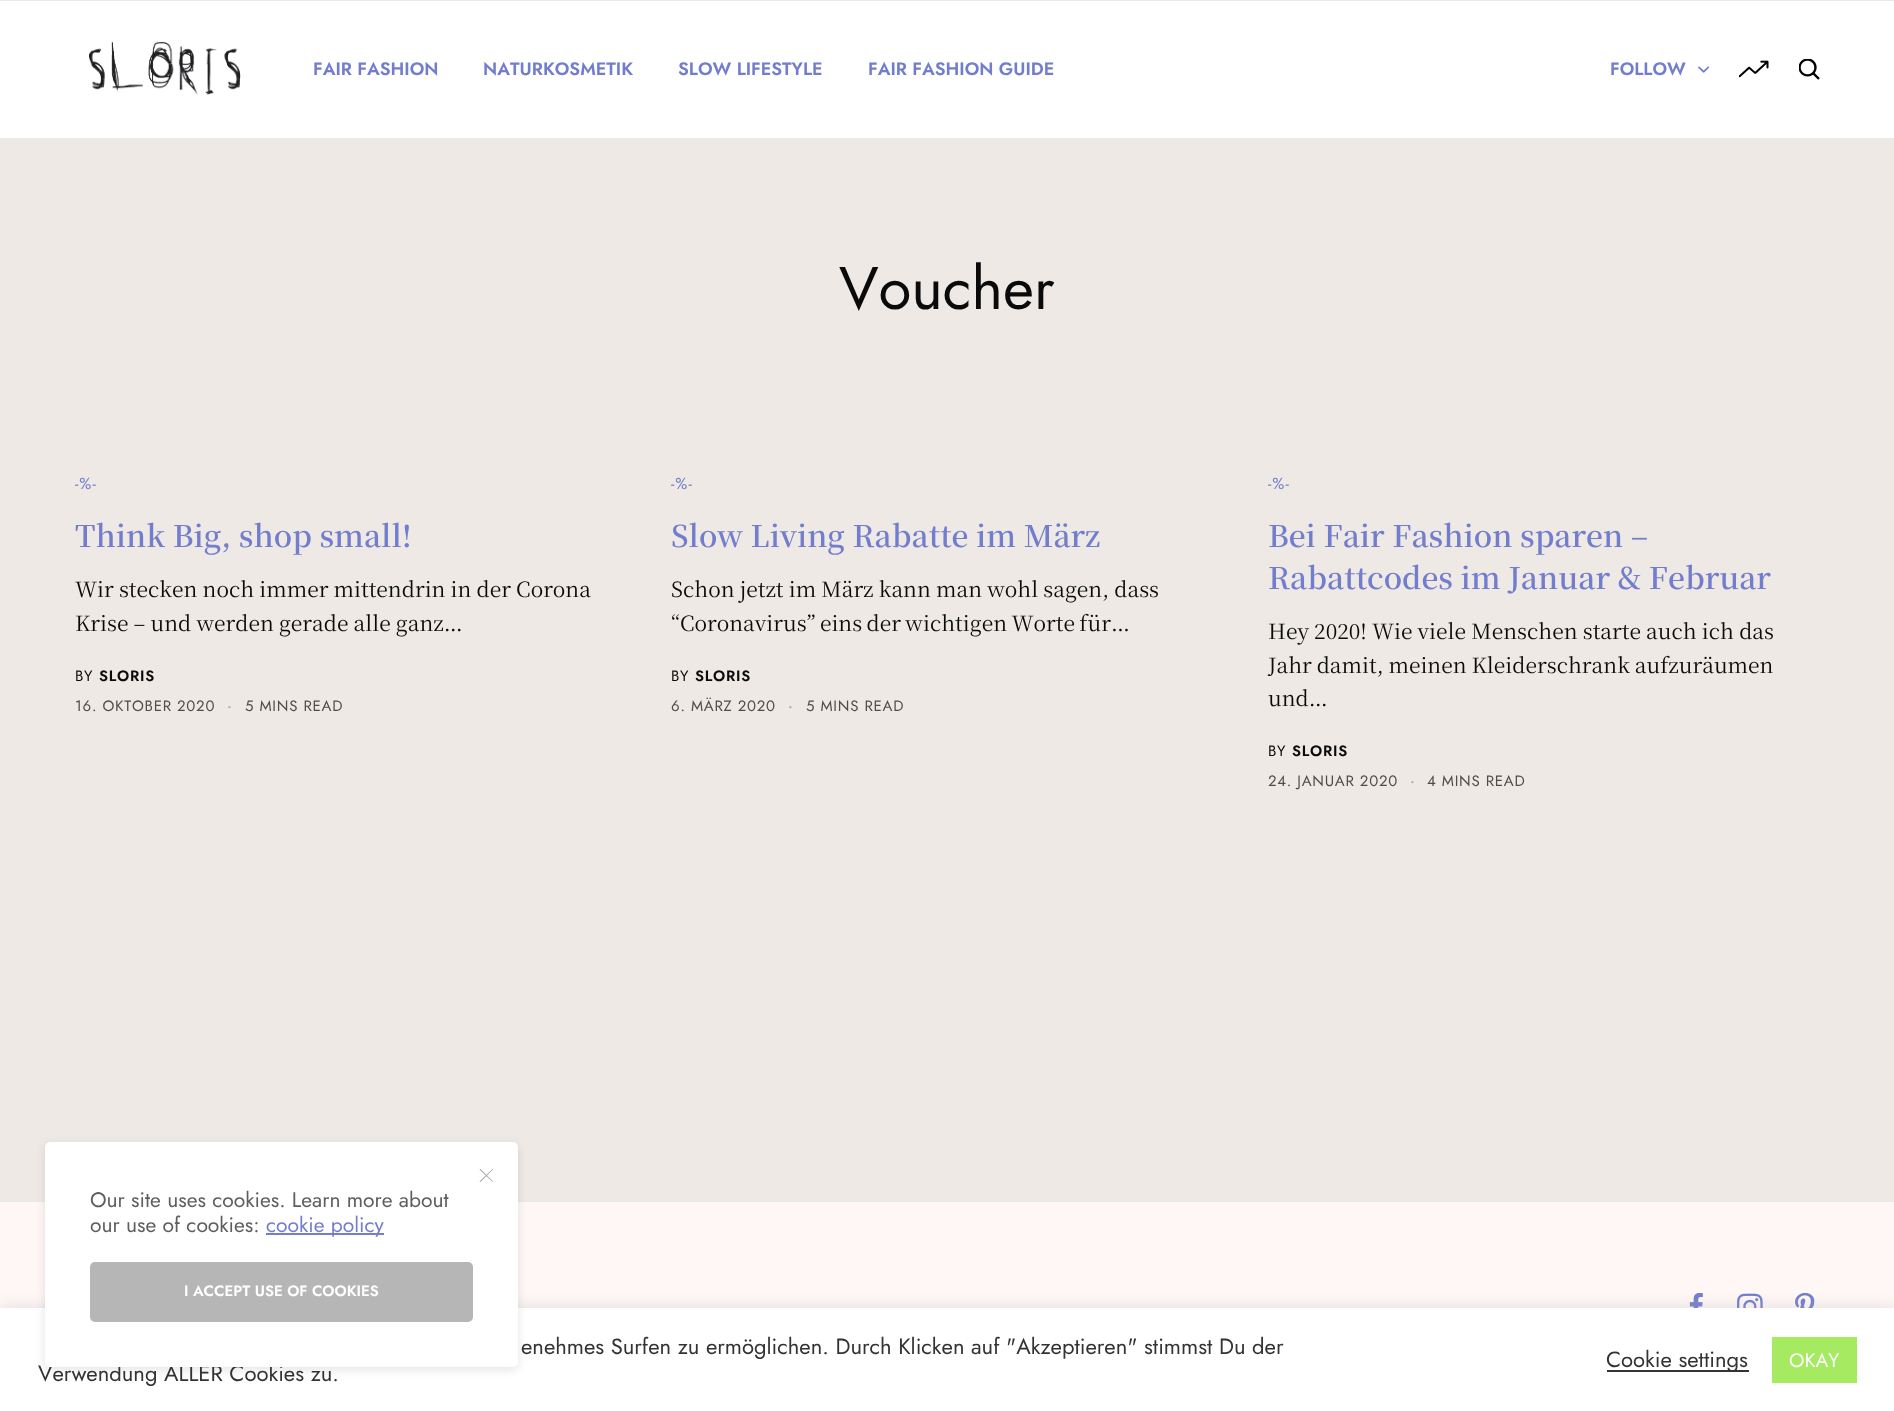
async function draw(canvas) {
  canvas.width = 1894
  canvas.height = 1411
  const ctx = canvas.getContext('2d')
  ctx.miterLimit = 4
  ctx.fontKerning = 'none'
  async function loadImage(src) {
    const img = new Image()
    img.src = src
    await img.decode()
    return img
  }

  ctx.fillStyle = '#fff'
  ctx.fillRect(0, 0, 1894, 1411)
  ctx.fillStyle = '#ebebeb'
  ctx.fillRect(0, 0, 1894, 1)
  ctx.drawImage(await loadImage('image0.png'), 89, 41, 152, 54)
  ctx.font = '600 18px Jost'
  ctx.fillStyle = '#727ecd'
  ctx.fillText('FAIR FASHION', 313, 75)
  ctx.fillText('NATURKOSMETIK', 483, 75)
  ctx.fillText('SLOW LIFESTYLE', 678, 75)
  ctx.fillText('FAIR FASHION GUIDE', 868, 75)
  ctx.fillText('FOLLOW', 1610, 75)
  ctx.drawImage(await loadImage('image1.png'), 1698, 66, 12, 7)
  ctx.drawImage(await loadImage('image2.png'), 1739, 60, 30, 18)
  ctx.drawImage(await loadImage('image3.png'), 1799, 59, 21, 21)
  ctx.fillStyle = '#eee9e4'
  ctx.fillRect(0, 138, 1894, 1062)
  ctx.font = '60px Jost'
  ctx.fillStyle = '#0a0a0a'
  ctx.fillText('Voucher', 839, 309)
  ctx.letterSpacing = '1px'
  ctx.font = '16px Jost'
  ctx.fillStyle = '#727ecd'
  ctx.fillText('-%-', 75, 489)
  ctx.letterSpacing = '0px'
  ctx.font = '600 30px Noto Serif KR'
  ctx.fillText('Think Big, shop small!', 75, 547)
  ctx.wordSpacing = '-0.25px'
  ctx.font = '21px Noto Serif KR'
  ctx.fillStyle = '#0a0a0a'
  ctx.fillText('Wir stecken noch immer mittendrin in der Corona', 75, 597)
  ctx.fillText('Krise – und werden gerade alle ganz…', 75, 631)
  ctx.letterSpacing = '0.75px'
  ctx.wordSpacing = '0px'
  ctx.font = '15px Jost'
  ctx.fillText('BY', 75, 681)
  ctx.font = '600 15px Jost'
  ctx.fillText('SLORIS', 99, 681)
  ctx.font = '15px Jost'
  ctx.fillStyle = '#4e4d4b'
  ctx.fillText('16. OKTOBER 2020', 75, 711)
  ctx.font = '600 15px Jost'
  ctx.fillStyle = '#b5b5b5'
  ctx.fillText('·', 227, 711)
  ctx.font = '15px Jost'
  ctx.fillStyle = '#4e4d4b'
  ctx.fillText('5 MINS READ', 245, 711)
  ctx.letterSpacing = '1px'
  ctx.font = '16px Jost'
  ctx.fillStyle = '#727ecd'
  ctx.fillText('-%-', 671, 489)
  ctx.letterSpacing = '0px'
  ctx.font = '600 30px Noto Serif KR'
  ctx.fillText('Slow Living Rabatte im März', 671, 547)
  ctx.wordSpacing = '-0.25px'
  ctx.font = '21px Noto Serif KR'
  ctx.fillStyle = '#0a0a0a'
  ctx.fillText('Schon jetzt im März kann man wohl sagen, dass', 671, 597)
  ctx.wordSpacing = '-1px'
  ctx.fillText('“Coronavirus” eins der wichtigen Worte für…', 671, 631)
  ctx.letterSpacing = '0.75px'
  ctx.wordSpacing = '0px'
  ctx.font = '15px Jost'
  ctx.fillText('BY', 671, 681)
  ctx.font = '600 15px Jost'
  ctx.fillText('SLORIS', 695, 681)
  ctx.font = '15px Jost'
  ctx.fillStyle = '#4e4d4b'
  ctx.fillText('6. MÄRZ 2020', 671, 711)
  ctx.font = '600 15px Jost'
  ctx.fillStyle = '#b5b5b5'
  ctx.fillText('·', 788, 711)
  ctx.font = '15px Jost'
  ctx.fillStyle = '#4e4d4b'
  ctx.fillText('5 MINS READ', 806, 711)
  ctx.letterSpacing = '1px'
  ctx.font = '16px Jost'
  ctx.fillStyle = '#727ecd'
  ctx.fillText('-%-', 1268, 489)
  ctx.letterSpacing = '0px'
  ctx.font = '600 30px Noto Serif KR'
  ctx.fillText('Bei Fair Fashion sparen –', 1268, 547)
  ctx.fillText('Rabattcodes im Januar & Februar', 1268, 589)
  ctx.wordSpacing = '-0.25px'
  ctx.font = '21px Noto Serif KR'
  ctx.fillStyle = '#0a0a0a'
  ctx.fillText('Hey 2020! Wie viele Menschen starte auch ich das', 1268, 639)
  ctx.wordSpacing = '-0.5px'
  ctx.fillText('Jahr damit, meinen Kleiderschrank aufzuräumen', 1268, 673)
  ctx.wordSpacing = '0px'
  ctx.fillText('und…', 1268, 706)
  ctx.letterSpacing = '0.75px'
  ctx.font = '15px Jost'
  ctx.fillText('BY', 1268, 756)
  ctx.font = '600 15px Jost'
  ctx.fillText('SLORIS', 1292, 756)
  ctx.font = '15px Jost'
  ctx.fillStyle = '#4e4d4b'
  ctx.fillText('24. JANUAR 2020', 1268, 786)
  ctx.font = '600 15px Jost'
  ctx.fillStyle = '#b5b5b5'
  ctx.fillText('·', 1410, 786)
  ctx.font = '15px Jost'
  ctx.fillStyle = '#4e4d4b'
  ctx.fillText('4 MINS READ', 1427, 786)
  ctx.fillStyle = '#fff6f6'
  ctx.fillRect(0, 1202, 1894, 106)
  ctx.fillStyle = '#e9e9e9'
  ctx.fillRect(0, 1200, 1894, 2)
  ctx.drawImage(await loadImage('image4.png'), 1689, 1292, 14, 16)
  ctx.drawImage(await loadImage('image5.png'), 1737, 1293, 26, 15)
  ctx.drawImage(await loadImage('image6.png'), 1795, 1292, 20, 16)
  ctx.fillStyle = '#acabab4d'
  ctx.filter = 'blur(7.5px)'
  ctx.beginPath()
  ctx.rect(0, 1307, 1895, 103)
  ctx.fill()
  ctx.filter = 'none'
  ctx.fillStyle = '#fff'
  ctx.fillRect(0, 1308, 1894, 103)
  ctx.fillStyle = '#0000001a'
  ctx.filter = 'blur(5px)'
  ctx.beginPath()
  ctx.roundRect(45, 1145, 473, 225, 5)
  ctx.fill()
  ctx.filter = 'none'
  ctx.letterSpacing = '0px'
  ctx.font = '22px Jost'
  ctx.fillStyle = '#333'
  ctx.fillText('Verwendung ALLER Cookies zu.', 38, 1381)
  ctx.fillStyle = '#fff'
  ctx.beginPath()
  ctx.roundRect(45, 1142, 473, 225, 5)
  ctx.fill()
  ctx.fillStyle = '#a3a3a3'
  ctx.beginPath()
  ctx.moveTo(480.5, 1169)
  ctx.lineTo(493, 1181.5)
  ctx.lineTo(492.5, 1182)
  ctx.lineTo(479.5, 1169.5)
  ctx.closePath()
  ctx.fill()
  ctx.beginPath()
  ctx.moveTo(479.5, 1181.5)
  ctx.lineTo(492.5, 1169)
  ctx.lineTo(493, 1169.5)
  ctx.lineTo(480.5, 1182)
  ctx.closePath()
  ctx.fill()
  ctx.font = '21px Jost'
  ctx.fillStyle = '#5e5e5e'
  ctx.fillText('Our site uses cookies. Learn more about', 90, 1207)
  ctx.fillText('our use of cookies:', 90, 1232)
  ctx.fillStyle = '#727ecd'
  ctx.fillRect(266, 1233, 118, 2)
  ctx.fillText('cookie policy', 266, 1232)
  ctx.fillStyle = '#b6b6b6'
  ctx.beginPath()
  ctx.roundRect(90, 1262, 383, 60, 5)
  ctx.fill()
  ctx.font = '600 15px Jost'
  ctx.fillStyle = '#fff'
  ctx.fillText('I ACCEPT USE OF COOKIES', 184, 1296)
  ctx.font = '22px Jost'
  ctx.fillStyle = '#333'
  ctx.fillText('enehmes Surfen zu ermöglichen. Durch Klicken auf "Akzeptieren"', 521, 1354)
  ctx.fillText('stimmst Du der', 1144, 1354)
  ctx.fillRect(1607, 1370, 142, 2)
  ctx.fillText('Cookie settings', 1606, 1367)
  ctx.fillStyle = '#a6ea62'
  ctx.fillRect(1772, 1337, 85, 46)
  ctx.font = '19.5px Jost'
  ctx.fillStyle = '#fff'
  ctx.fillText('OKAY', 1789, 1367)
}

draw(document.querySelector('canvas'))
